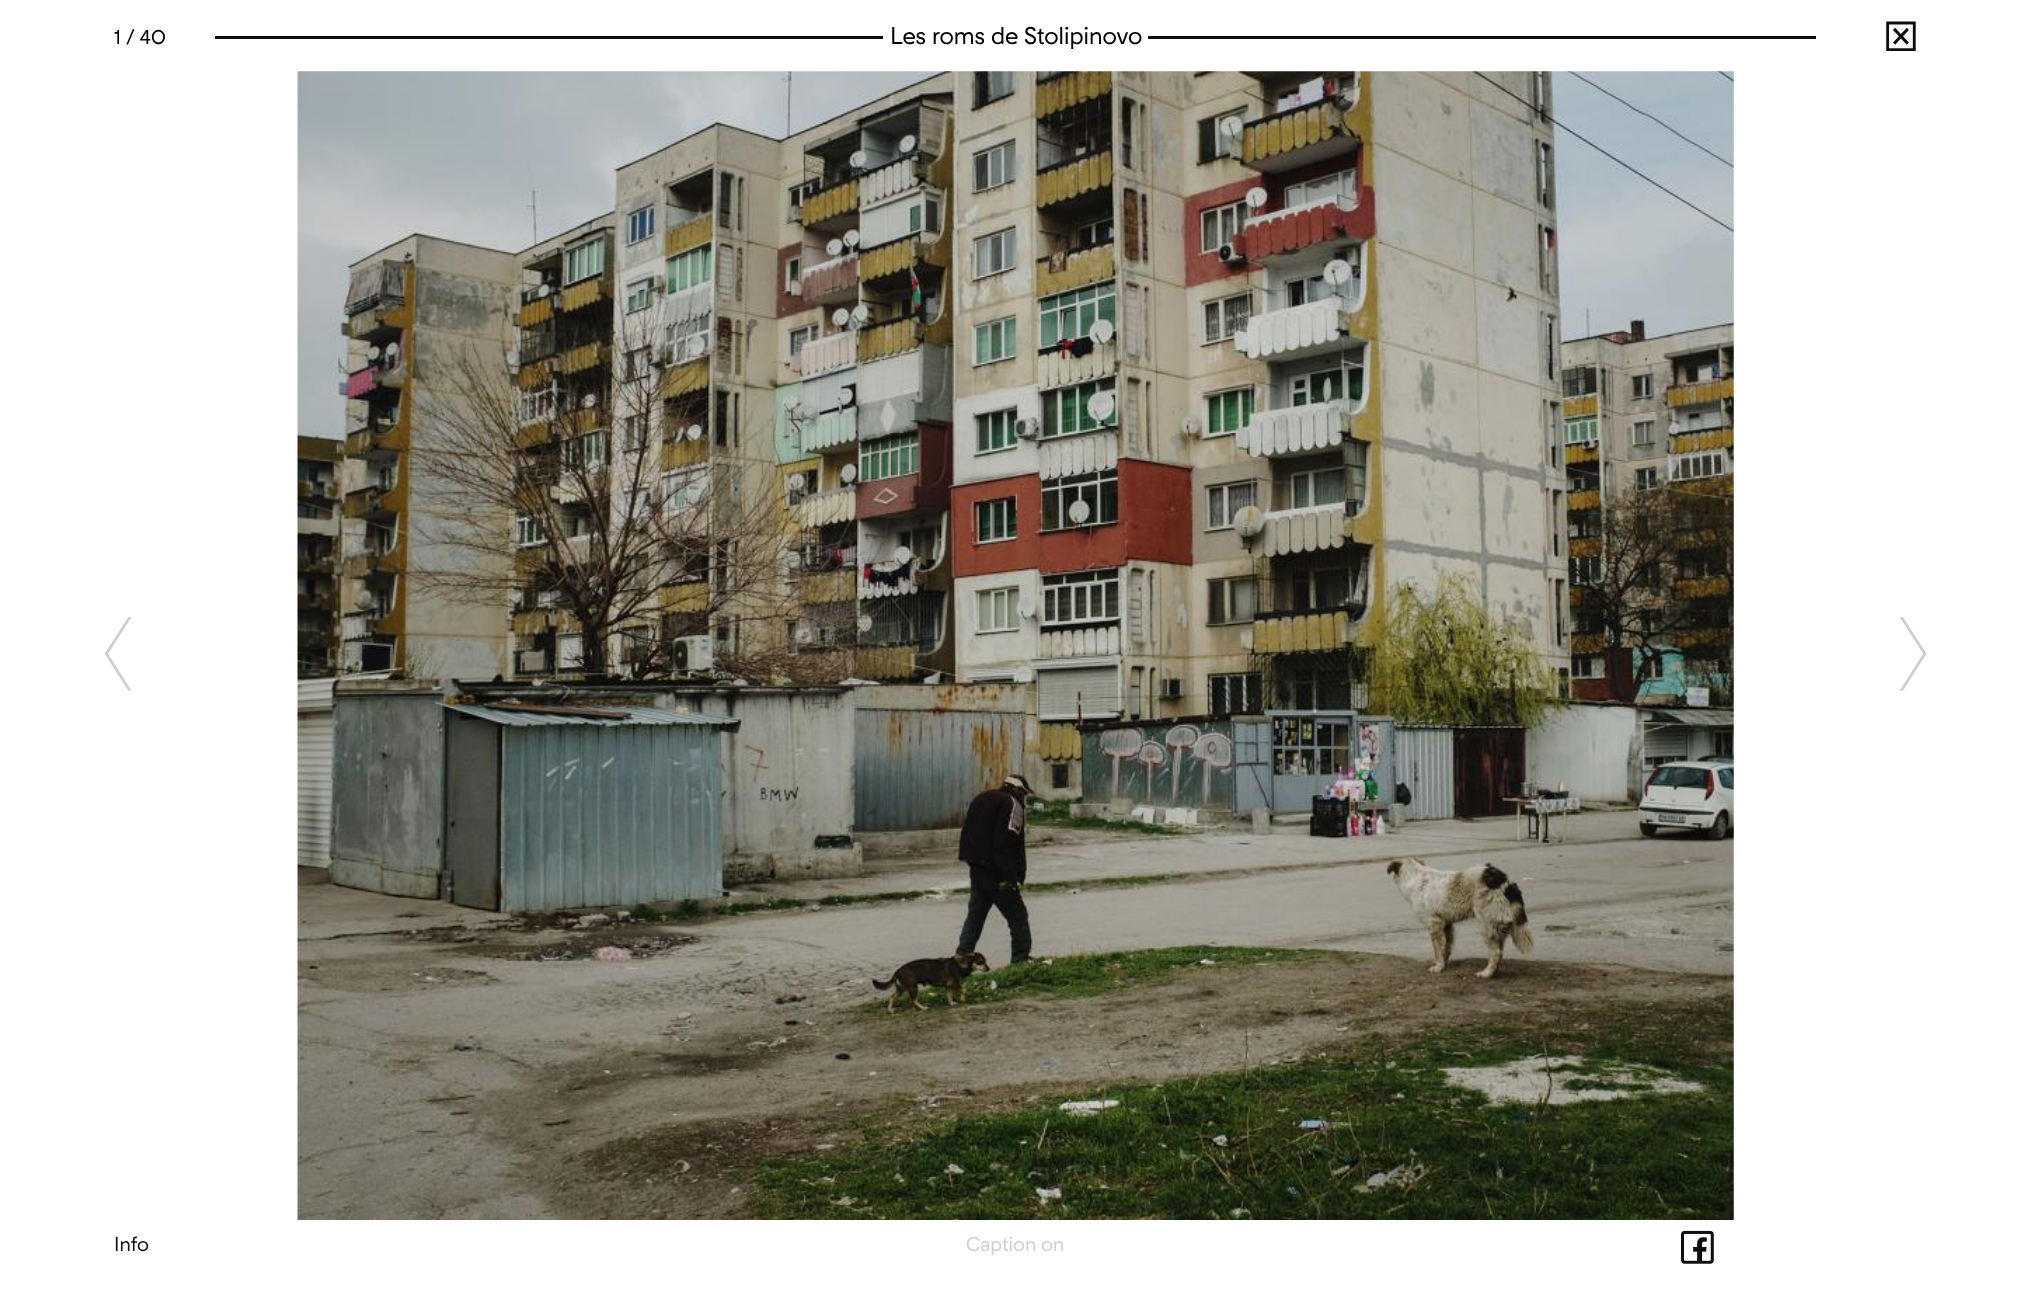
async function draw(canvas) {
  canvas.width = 2031
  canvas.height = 1291
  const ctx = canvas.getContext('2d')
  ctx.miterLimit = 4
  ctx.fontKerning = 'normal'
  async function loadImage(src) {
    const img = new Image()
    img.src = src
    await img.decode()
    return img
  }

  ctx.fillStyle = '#fff'
  ctx.fillRect(0, 0, 2031, 1291)
  ctx.font = '20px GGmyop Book'
  ctx.fillStyle = '#000'
  ctx.fillText('1 / 40', 114, 44)
  ctx.fillStyle = '#0f0d11'
  ctx.fillRect(215, 36, 1601, 3)
  ctx.fillStyle = '#fff'
  ctx.fillRect(883, 36, 265, 3)
  ctx.font = '24px GGmyop Book'
  ctx.fillStyle = '#000'
  ctx.fillText('Les roms de Stolipinovo', 890, 44)
  ctx.font = '60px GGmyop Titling'
  ctx.fillStyle = '#0f0d11'
  ctx.fillText('×', 1885, 51)
  ctx.font = '80px GGmyop Titling'
  ctx.fillStyle = '#cfcfcf'
  ctx.fillText('<', 103, 674)
  ctx.drawImage(await loadImage('image0.png'), 297, 71, 1437, 1149)
  ctx.fillText('>', 1898, 674)
  ctx.font = '20px GGmyop Book'
  ctx.fillStyle = '#0f0d11'
  ctx.fillText('Info', 114, 1251)
  ctx.fillStyle = '#cfcfcf'
  ctx.fillText('Caption on', 966, 1251)
  ctx.drawImage(await loadImage('image1.png'), 1681, 1230, 33, 34)
}

draw(document.querySelector('canvas'))
